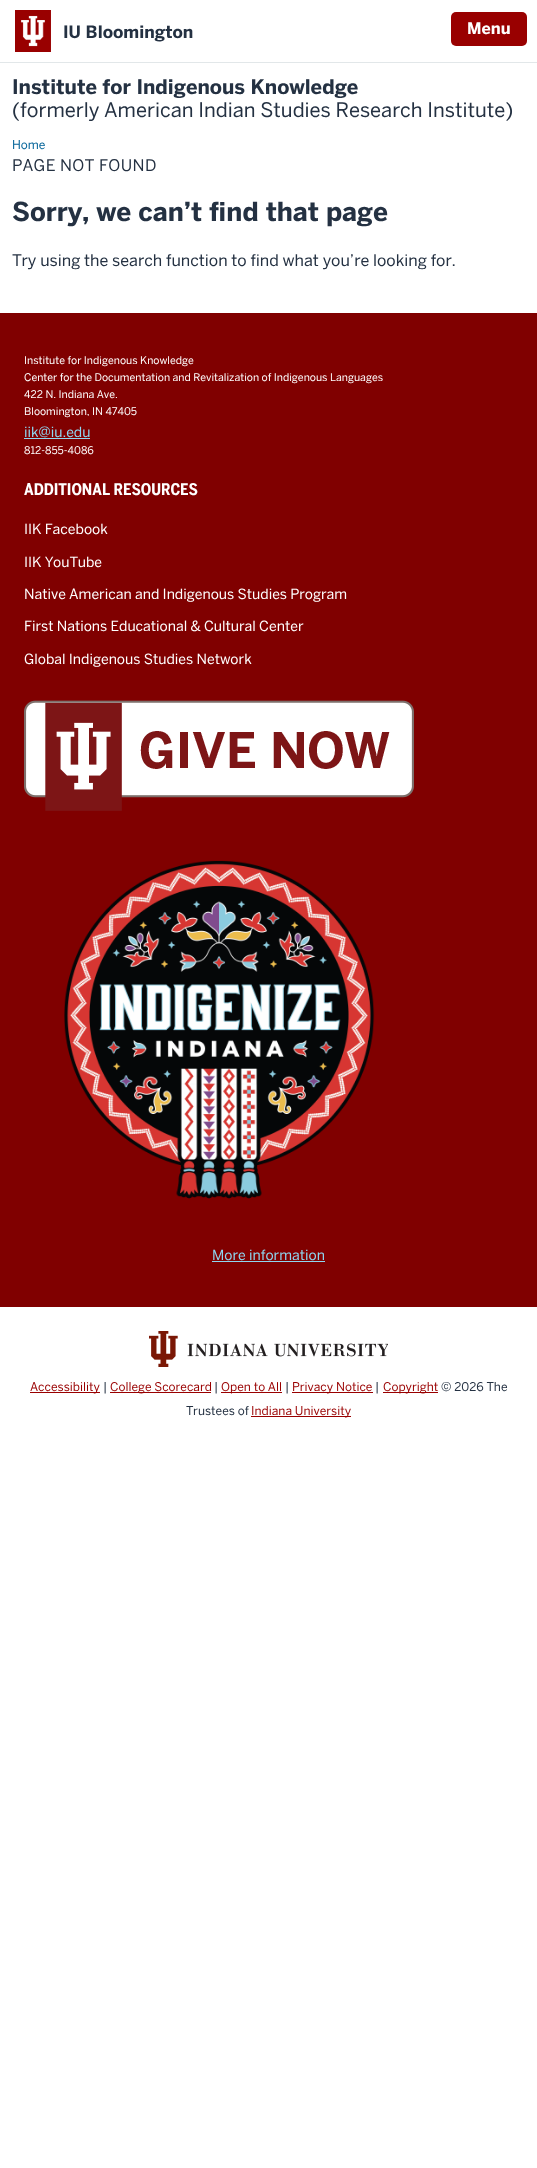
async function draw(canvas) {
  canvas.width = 537
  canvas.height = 2168
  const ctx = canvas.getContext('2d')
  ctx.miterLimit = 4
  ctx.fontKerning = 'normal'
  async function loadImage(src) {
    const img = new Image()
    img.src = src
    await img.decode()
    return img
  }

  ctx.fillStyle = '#fff'
  ctx.fillRect(0, 0, 537, 2168)
  ctx.fillStyle = '#e2e7e9'
  ctx.fillRect(0, 62, 537, 1)
  ctx.drawImage(await loadImage('image0.png'), 15, 10, 36, 42)
  ctx.font = 'bold 17px "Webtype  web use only"'
  ctx.fillStyle = '#243142'
  ctx.fillText('IU Bloomington', 63, 38)
  ctx.fillStyle = '#900'
  ctx.beginPath()
  ctx.roundRect(451, 12, 76, 34, 5)
  ctx.fill()
  ctx.font = 'bold 16px "Webtype  web use only"'
  ctx.fillStyle = '#fff'
  ctx.fillText('Menu', 467, 34)
  ctx.font = 'bold 20px "Webtype  web use only"'
  ctx.fillStyle = '#243142'
  ctx.fillText('Institute for Indigenous Knowledge', 12, 94)
  ctx.font = '20px "Webtype  web use only"'
  ctx.fillText('(formerly American Indian Studies Research Institute)', 12, 117)
  ctx.font = '12px "Webtype  web use only"'
  ctx.fillStyle = '#006298'
  ctx.fillText('Home', 12, 149)
  ctx.letterSpacing = '0.4px'
  ctx.font = '16px "Webtype  web use only"'
  ctx.fillStyle = '#243142'
  ctx.fillText('PAGE NOT FOUND', 12, 171)
  ctx.letterSpacing = '0px'
  ctx.font = 'bold 26px "Webtype  web use only"'
  ctx.fillText('Sorry, we can’t find that page', 12, 221)
  ctx.font = '16px "Webtype  web use only"'
  ctx.fillText('Try using the search function to find what you’re looking for.', 12, 266)
  ctx.fillStyle = '#800000'
  ctx.fillRect(0, 313, 537, 994)
  ctx.font = '10.5px "Webtype  web use only"'
  ctx.fillStyle = '#fff'
  ctx.fillText('Institute for Indigenous Knowledge', 24, 364)
  ctx.fillText('Center for the Documentation and Revitalization of Indigenous Languages', 24, 381)
  ctx.fillText('422 N. Indiana Ave.', 24, 398)
  ctx.fillText('Bloomington, IN 47405', 24, 415)
  ctx.font = '14px "Webtype  web use only"'
  ctx.fillStyle = '#8ed7f1'
  ctx.fillText('iik@iu.edu', 24, 437)
  ctx.fillRect(24, 438, 66, 1)
  ctx.font = '10.5px "Webtype  web use only"'
  ctx.fillStyle = '#fff'
  ctx.fillText('812-855-4086', 24, 454)
  ctx.font = 'bold 16px "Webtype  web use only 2"'
  ctx.fillText('ADDITIONAL RESOURCES', 24, 495)
  ctx.font = '14px "Webtype  web use only"'
  ctx.fillText('IIK Facebook', 24, 534)
  ctx.fillText('IIK YouTube', 24, 567)
  ctx.fillText('Native American and Indigenous Studies Program', 24, 599)
  ctx.fillText('First Nations Educational & Cultural Center', 24, 631)
  ctx.fillText('Global Indigenous Studies Network', 24, 664)
  ctx.drawImage(await loadImage('image1.png'), 24, 700, 390, 111)
  ctx.drawImage(await loadImage('image2.png'), 64, 860, 311, 339)
  ctx.fillStyle = '#8ed7f1'
  ctx.fillText('More information', 212, 1260)
  ctx.fillRect(212, 1261, 113, 1)
  ctx.drawImage(await loadImage('image3.png'), 149, 1331, 239, 36)
  ctx.fillStyle = '#900'
  ctx.fillRect(30, 1392, 70, 1)
  ctx.font = '12px "Webtype  web use only"'
  ctx.fillText('Accessibility', 30, 1391)
  ctx.fillStyle = '#243142'
  ctx.fillText('|', 103, 1391)
  ctx.fillStyle = '#900'
  ctx.fillRect(110, 1392, 101, 1)
  ctx.fillText('College Scorecard', 110, 1391)
  ctx.fillStyle = '#243142'
  ctx.fillText('|', 214, 1391)
  ctx.fillStyle = '#900'
  ctx.fillRect(221, 1392, 61, 1)
  ctx.fillText('Open to All', 221, 1391)
  ctx.fillStyle = '#243142'
  ctx.fillText('|', 285, 1391)
  ctx.fillStyle = '#900'
  ctx.fillRect(292, 1392, 81, 1)
  ctx.fillText('Privacy Notice', 292, 1391)
  ctx.fillStyle = '#243142'
  ctx.fillText('|', 375, 1391)
  ctx.fillStyle = '#900'
  ctx.fillRect(383, 1392, 55, 1)
  ctx.fillText('Copyright', 383, 1391)
  ctx.fillStyle = '#243142'
  ctx.fillText('© 2026 The', 441, 1391)
  ctx.fillText('Trustees of', 186, 1415)
  ctx.fillStyle = '#900'
  ctx.fillRect(251, 1416, 100, 1)
  ctx.fillText('Indiana University', 251, 1415)
}

draw(document.querySelector('canvas'))
